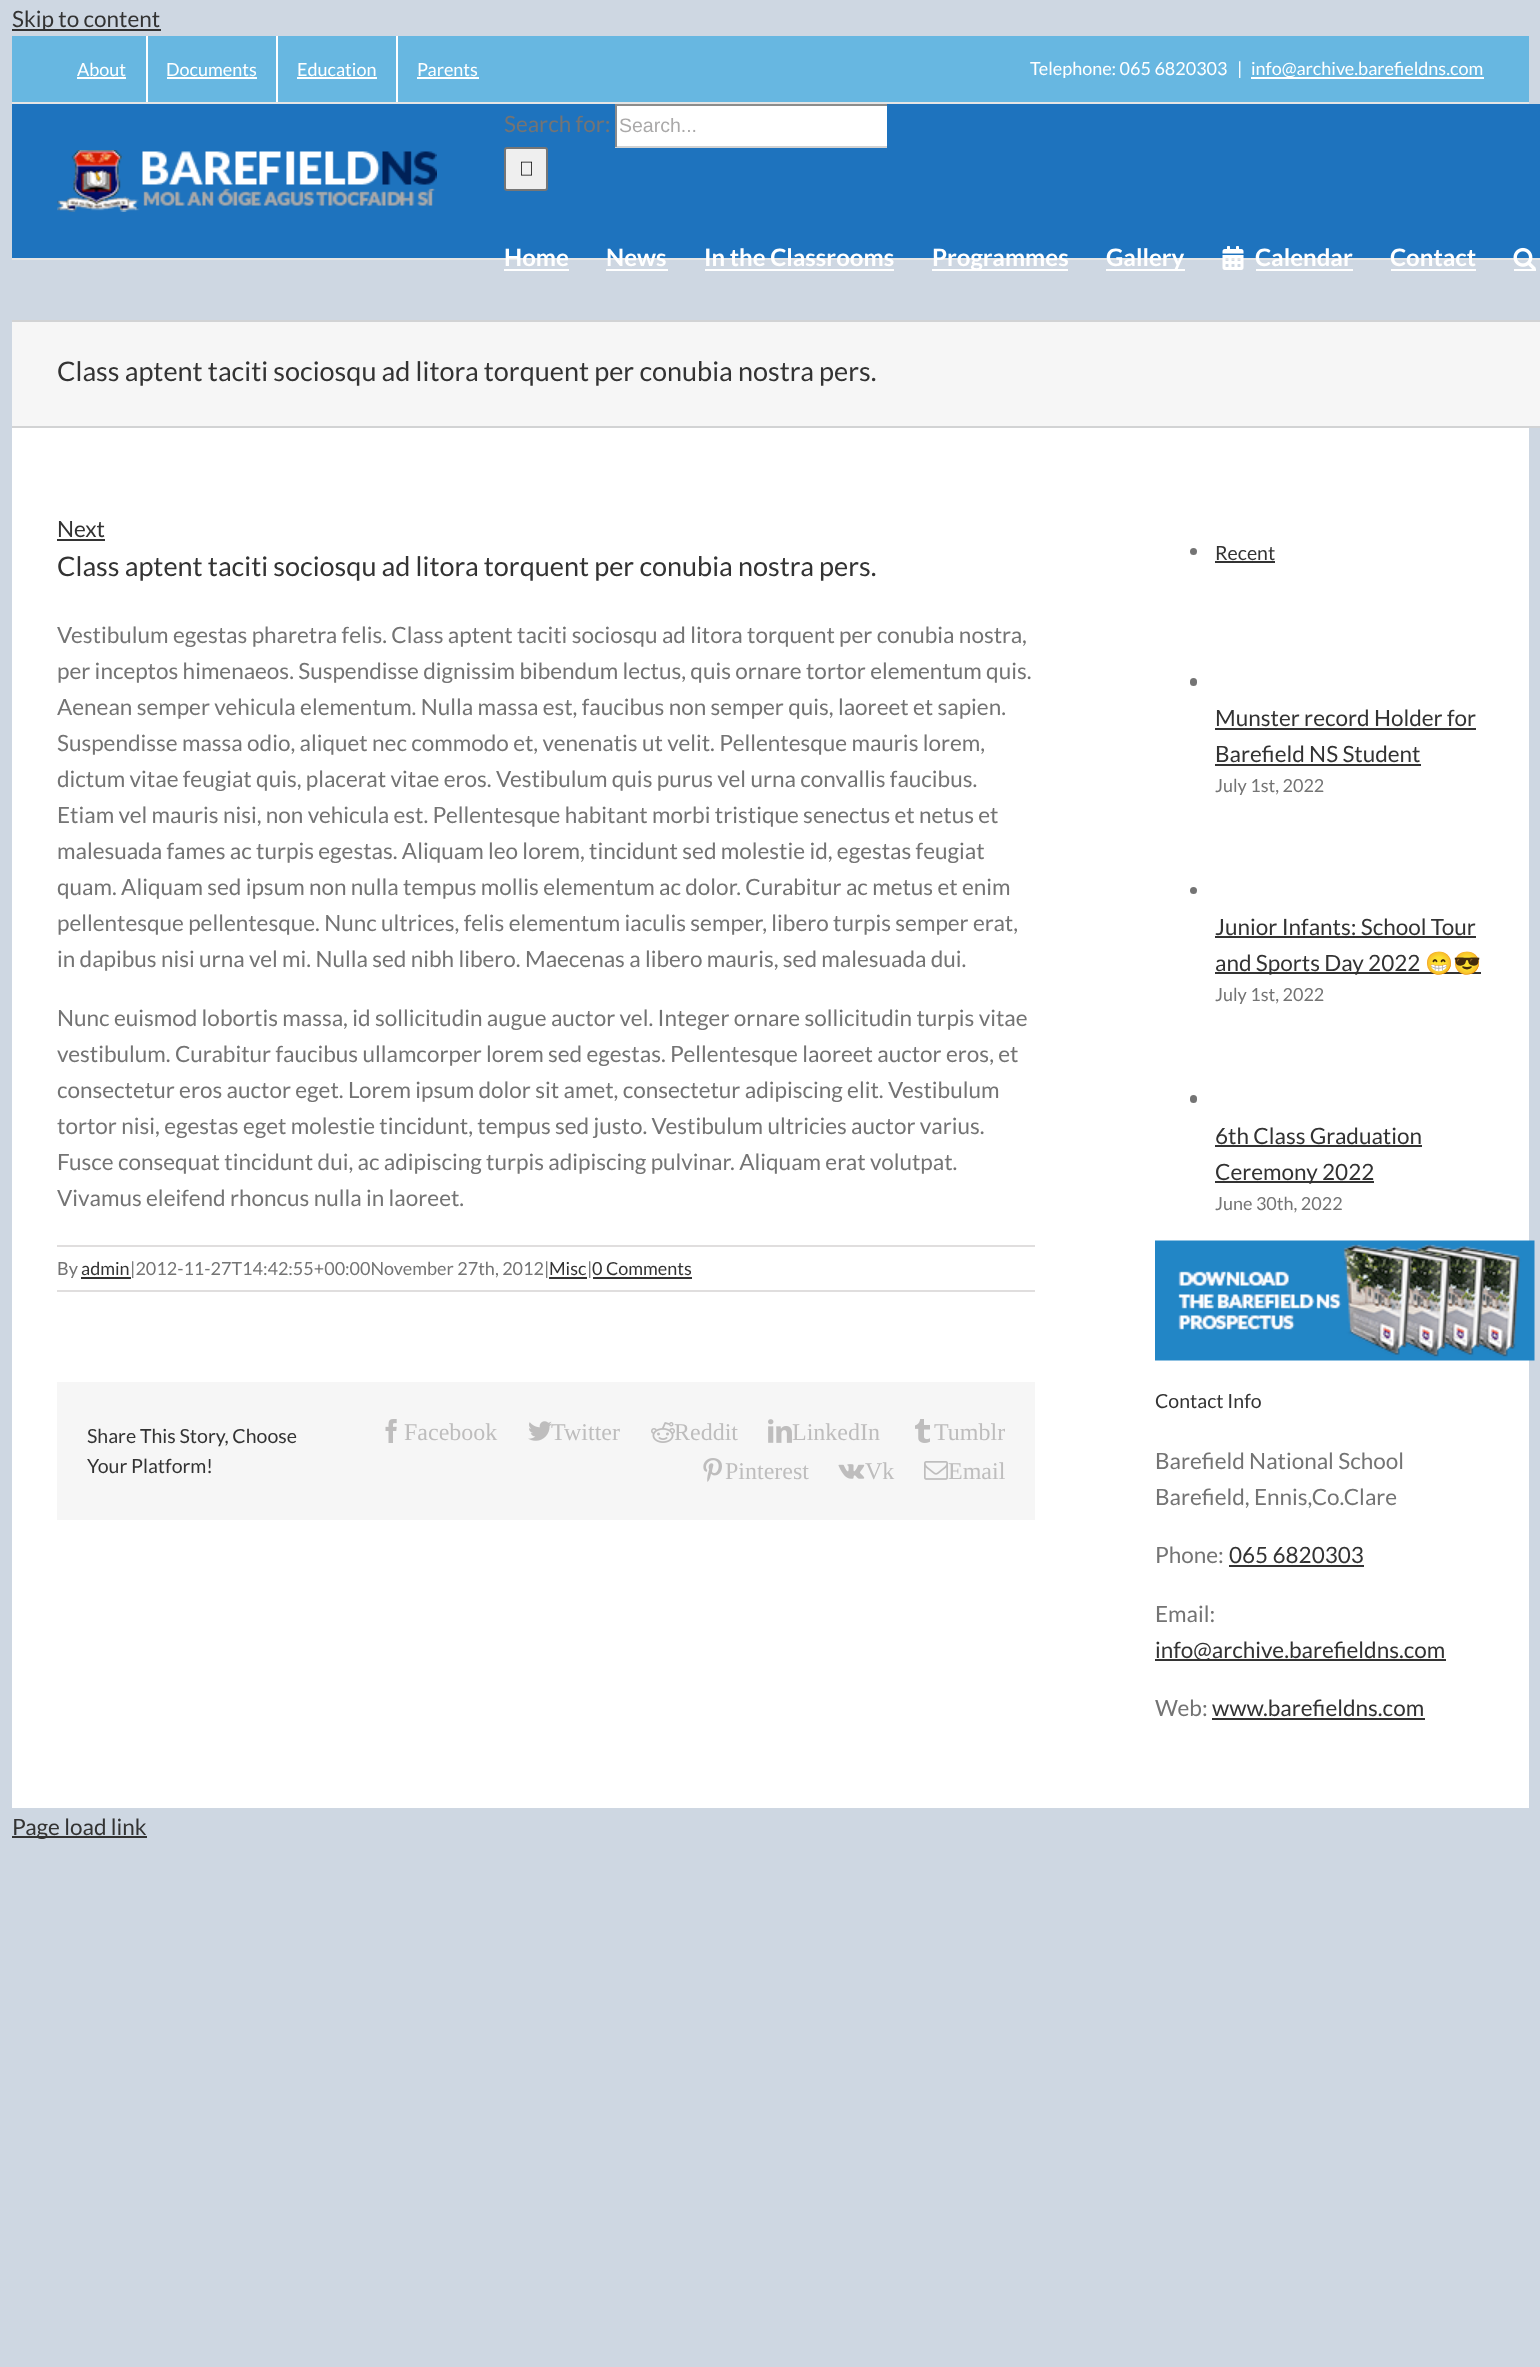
async function draw(canvas) {
  canvas.width = 1540
  canvas.height = 2367
  const ctx = canvas.getContext('2d')
  ctx.miterLimit = 4
  ctx.fontKerning = 'normal'
  async function loadImage(src) {
    const img = new Image()
    img.src = src
    await img.decode()
    return img
  }

  ctx.fillStyle = '#ced7e2'
  ctx.fillRect(0, 0, 1540, 2367)
  ctx.fillStyle = '#333'
  ctx.fillRect(12, 29, 149, 2)
  ctx.font = '22.5px Lato'
  ctx.fillText('Skip to content', 12, 27)
  ctx.fillStyle = '#67b7e1'
  ctx.fillRect(12, 36, 1517, 66)
  ctx.fillStyle = '#e5e5e5'
  ctx.fillRect(12, 102, 1517, 2)
  ctx.font = '18px Lato'
  ctx.fillStyle = '#fff'
  ctx.fillText('About', 77, 76)
  ctx.fillRect(77, 77, 49, 2)
  ctx.fillRect(146, 36, 2, 66)
  ctx.fillText('Documents', 166, 76)
  ctx.fillRect(167, 77, 90, 2)
  ctx.fillRect(276, 36, 2, 66)
  ctx.fillText('Education', 297, 76)
  ctx.fillRect(297, 77, 80, 2)
  ctx.fillRect(396, 36, 2, 66)
  ctx.fillText('Parents', 417, 76)
  ctx.fillRect(417, 77, 62, 2)
  ctx.fillText('Telephone: 065 6820303', 1030, 75)
  ctx.fillText('|', 1237, 75)
  ctx.fillRect(1251, 77, 233, 2)
  ctx.fillText('info@archive.barefieldns.com', 1251, 75)
  ctx.fillStyle = '#1e73be'
  ctx.fillRect(12, 104, 1528, 154)
  ctx.fillStyle = '#e5e5e5'
  ctx.fillRect(12, 258, 1528, 2)
  ctx.drawImage(await loadImage('image0.png'), 57, 150, 380, 62)
  ctx.font = '22.5px Lato'
  ctx.fillStyle = '#747474'
  ctx.fillText('Search for:', 504, 132)
  ctx.fillStyle = '#fff'
  ctx.fillRect(617, 106, 270, 40)
  ctx.fillStyle = '#8c8c8c'
  ctx.fillRect(615, 104, 272, 2)
  ctx.fillStyle = '#d2d2d2'
  ctx.fillRect(615, 146, 272, 2)
  ctx.fillStyle = '#8c8c8c'
  ctx.fillRect(615, 104, 2, 43)
  ctx.font = '19.5px Liberation Sans'
  ctx.fillStyle = '#aaa9a9'
  ctx.fillText('Search...', 619, 132)
  ctx.fillStyle = '#efefef'
  ctx.beginPath()
  ctx.roundRect(505, 148, 42, 42, 2)
  ctx.fill()
  ctx.strokeStyle = '#767676'
  ctx.lineWidth = 2
  ctx.stroke()
  ctx.drawImage(await loadImage('image1.png'), 521, 161, 11, 15)
  ctx.font = 'bold 24px Lato'
  ctx.fillStyle = '#fff'
  ctx.fillText('Home', 504, 266)
  ctx.fillRect(504, 269, 65, 2)
  ctx.fillText('News', 606, 266)
  ctx.fillRect(606, 269, 62, 2)
  ctx.fillText('In the Classrooms', 704, 266)
  ctx.fillRect(705, 269, 189, 2)
  ctx.fillRect(932, 269, 136, 2)
  ctx.fillText('Programmes', 932, 266)
  ctx.fillRect(1106, 269, 79, 2)
  ctx.fillText('Gallery', 1106, 266)
  ctx.drawImage(await loadImage('image2.png'), 1222, 246, 22, 24)
  ctx.fillText('Calendar', 1255, 266)
  ctx.fillRect(1256, 269, 97, 2)
  ctx.fillText('Contact', 1390, 266)
  ctx.fillRect(1391, 269, 85, 2)
  ctx.fillRect(1514, 269, 22, 2)
  ctx.drawImage(await loadImage('image3.png'), 1513, 247, 23, 22)
  ctx.fillStyle = '#f6f6f6'
  ctx.fillRect(12, 322, 1528, 104)
  ctx.fillStyle = '#d2d3d4'
  ctx.fillRect(12, 320, 1528, 2)
  ctx.fillRect(12, 426, 1528, 2)
  ctx.font = '27px Lato'
  ctx.fillStyle = '#333'
  ctx.fillText('Class aptent taciti sociosqu ad litora torquent per conubia nostra pers.', 57, 381)
  ctx.fillStyle = '#fff'
  ctx.fillRect(12, 428, 1517, 1380)
  ctx.font = '22.5px Lato'
  ctx.fillStyle = '#333'
  ctx.fillText('Next', 57, 537)
  ctx.fillRect(57, 539, 48, 2)
  ctx.font = '27px Lato'
  ctx.fillText('Class aptent taciti sociosqu ad litora torquent per conubia nostra pers.', 57, 576)
  ctx.font = '22.5px Lato'
  ctx.fillStyle = '#747474'
  ctx.fillText('Vestibulum egestas pharetra felis. Class aptent taciti sociosqu ad litora torquent per conubia nostra,', 57, 643)
  ctx.fillText('per inceptos himenaeos. Suspendisse dignissim bibendum lectus, quis ornare tortor elementum quis.', 57, 679)
  ctx.fillText('Aenean semper vehicula elementum. Nulla massa est, faucibus non semper quis, laoreet et sapien.', 57, 715)
  ctx.fillText('Suspendisse massa odio, aliquet nec commodo et, venenatis ut velit. Pellentesque mauris lorem,', 57, 751)
  ctx.fillText('dictum vitae feugiat quis, placerat vitae eros. Vestibulum quis purus vel urna convallis faucibus.', 57, 787)
  ctx.fillText('Etiam vel mauris nisi, non vehicula est. Pellentesque habitant morbi tristique senectus et netus et', 57, 823)
  ctx.fillText('malesuada fames ac turpis egestas. Aliquam leo lorem, tincidunt sed molestie id, egestas feugiat', 57, 859)
  ctx.fillText('quam. Aliquam sed ipsum non nulla tempus mollis elementum ac dolor. Curabitur ac metus et enim', 57, 895)
  ctx.fillText('pellentesque pellentesque. Nunc ultrices, felis elementum iaculis semper, libero turpis semper erat,', 57, 931)
  ctx.fillText('in dapibus nisi urna vel mi. Nulla sed nibh libero. Maecenas a libero mauris, sed malesuada dui.', 57, 967)
  ctx.fillText('Nunc euismod lobortis massa, id sollicitudin augue auctor vel. Integer ornare sollicitudin turpis vitae', 57, 1026)
  ctx.fillText('vestibulum. Curabitur faucibus ullamcorper lorem sed egestas. Pellentesque laoreet auctor eros, et', 57, 1062)
  ctx.fillText('consectetur eros auctor eget. Lorem ipsum dolor sit amet, consectetur adipiscing elit. Vestibulum', 57, 1098)
  ctx.fillText('tortor nisi, egestas eget molestie tincidunt, tempus sed justo. Vestibulum ultricies auctor varius.', 57, 1134)
  ctx.fillText('Fusce consequat tincidunt dui, ac adipiscing turpis adipiscing pulvinar. Aliquam erat volutpat.', 57, 1170)
  ctx.fillText('Vivamus eleifend rhoncus nulla in laoreet.', 57, 1206)
  ctx.fillStyle = '#e0dede'
  ctx.fillRect(57, 1245, 978, 2)
  ctx.fillRect(57, 1290, 978, 2)
  ctx.font = '18px Lato'
  ctx.fillStyle = '#747474'
  ctx.fillText('By', 57, 1275)
  ctx.fillStyle = '#333'
  ctx.fillText('admin', 81, 1275)
  ctx.fillRect(81, 1277, 50, 2)
  ctx.fillStyle = '#747474'
  ctx.fillText('|2012-11-27T14:42:55+00:00November 27th, 2012|', 130, 1275)
  ctx.fillStyle = '#333'
  ctx.fillText('Misc', 549, 1275)
  ctx.fillRect(549, 1277, 38, 2)
  ctx.fillStyle = '#747474'
  ctx.fillText('|', 587, 1275)
  ctx.fillStyle = '#333'
  ctx.fillText('0 Comments', 592, 1275)
  ctx.fillRect(593, 1277, 99, 2)
  ctx.fillStyle = '#f6f6f6'
  ctx.fillRect(57, 1382, 978, 138)
  ctx.font = '19.5px Lato'
  ctx.fillStyle = '#333'
  ctx.fillText('Share This Story, Choose', 87, 1443)
  ctx.fillText('Your Platform!', 87, 1473)
  ctx.drawImage(await loadImage('image4.png'), 385, 1419, 12, 24)
  ctx.font = '24px Liberation Serif'
  ctx.fillStyle = '#bebdbd'
  ctx.fillText('Facebook', 404, 1440)
  ctx.drawImage(await loadImage('image5.png'), 528, 1421, 24, 20)
  ctx.fillText('Twitter', 551, 1440)
  ctx.drawImage(await loadImage('image6.png'), 651, 1422, 24, 21)
  ctx.fillText('Reddit', 674, 1440)
  ctx.drawImage(await loadImage('image7.png'), 768, 1419, 24, 24)
  ctx.fillText('LinkedIn', 792, 1440)
  ctx.drawImage(await loadImage('image8.png'), 915, 1419, 15, 24)
  ctx.save()
  ctx.beginPath()
  ctx.rect(327, 1412, 678, 78)
  ctx.clip()
  ctx.fillText('Tumblr', 934, 1440)
  ctx.restore()
  ctx.drawImage(await loadImage('image9.png'), 703, 1458, 19, 24)
  ctx.fillText('Pinterest', 725, 1479)
  ctx.drawImage(await loadImage('image10.png'), 838, 1464, 27, 15)
  ctx.fillText('Vk', 865, 1479)
  ctx.drawImage(await loadImage('image11.png'), 924, 1461, 24, 19)
  ctx.fillText('Email', 948, 1479)
  ctx.fillStyle = '#747474'
  ctx.beginPath()
  ctx.arc(1193.5, 551.5, 3.5, 0, 2 * Math.PI)
  ctx.fill()
  ctx.font = '19.5px Lato'
  ctx.fillStyle = '#333'
  ctx.fillText('Recent', 1215, 560)
  ctx.fillRect(1215, 561, 60, 2)
  ctx.fillStyle = '#747474'
  ctx.beginPath()
  ctx.roundRect(1190, 678, 7, 8, 3.5)
  ctx.fill()
  ctx.font = '22.5px Lato'
  ctx.fillStyle = '#333'
  ctx.fillText('Munster record Holder for', 1215, 726)
  ctx.fillRect(1215, 728, 261, 2)
  ctx.fillText('Barefield NS Student', 1215, 762)
  ctx.fillRect(1215, 764, 206, 2)
  ctx.font = '18px Lato'
  ctx.fillStyle = '#747474'
  ctx.fillText('July 1st, 2022', 1215, 792)
  ctx.beginPath()
  ctx.arc(1193.5, 890.5, 3.5, 0, 2 * Math.PI)
  ctx.fill()
  ctx.font = '22.5px Lato'
  ctx.fillStyle = '#333'
  ctx.fillText('Junior Infants: School Tour', 1215, 935)
  ctx.fillRect(1215, 936, 261, 2)
  ctx.fillRect(1215, 972, 266, 2)
  ctx.fillText('and Sports Day 2022', 1215, 971)
  ctx.font = '22.5px Noto Color Emoji'
  ctx.fillText('😁😎', 1425, 971)
  ctx.font = '18px Lato'
  ctx.fillStyle = '#747474'
  ctx.fillText('July 1st, 2022', 1215, 1001)
  ctx.beginPath()
  ctx.roundRect(1190, 1095, 7, 8, 3.5)
  ctx.fill()
  ctx.font = '22.5px Lato'
  ctx.fillStyle = '#333'
  ctx.fillText('6th Class Graduation', 1215, 1144)
  ctx.fillRect(1215, 1145, 207, 2)
  ctx.fillRect(1215, 1181, 159, 2)
  ctx.fillText('Ceremony 2022', 1215, 1180)
  ctx.font = '18px Lato'
  ctx.fillStyle = '#747474'
  ctx.fillText('June 30th, 2022', 1215, 1210)
  ctx.drawImage(await loadImage('image12.png'), 1155, 1240, 380, 121)
  ctx.font = '19.5px Lato'
  ctx.fillStyle = '#333'
  ctx.fillText('Contact Info', 1155, 1408)
  ctx.font = '22.5px Lato'
  ctx.fillStyle = '#747474'
  ctx.fillText('Barefield National School', 1155, 1469)
  ctx.fillText('Barefield, Ennis,Co.Clare', 1155, 1505)
  ctx.fillText('Phone:', 1155, 1563)
  ctx.fillStyle = '#333'
  ctx.fillText('065 6820303', 1229, 1563)
  ctx.fillRect(1229, 1565, 135, 2)
  ctx.fillStyle = '#747474'
  ctx.fillText('Email:', 1155, 1622)
  ctx.fillStyle = '#333'
  ctx.fillRect(1155, 1659, 291, 2)
  ctx.fillText('info@archive.barefieldns.com', 1155, 1658)
  ctx.fillStyle = '#747474'
  ctx.fillText('Web:', 1155, 1716)
  ctx.fillStyle = '#333'
  ctx.fillText('www.barefieldns.com', 1212, 1716)
  ctx.fillRect(1212, 1718, 213, 2)
  ctx.fillRect(12, 1836, 135, 2)
  ctx.fillText('Page load link', 12, 1835)
}

draw(document.querySelector('canvas'))
